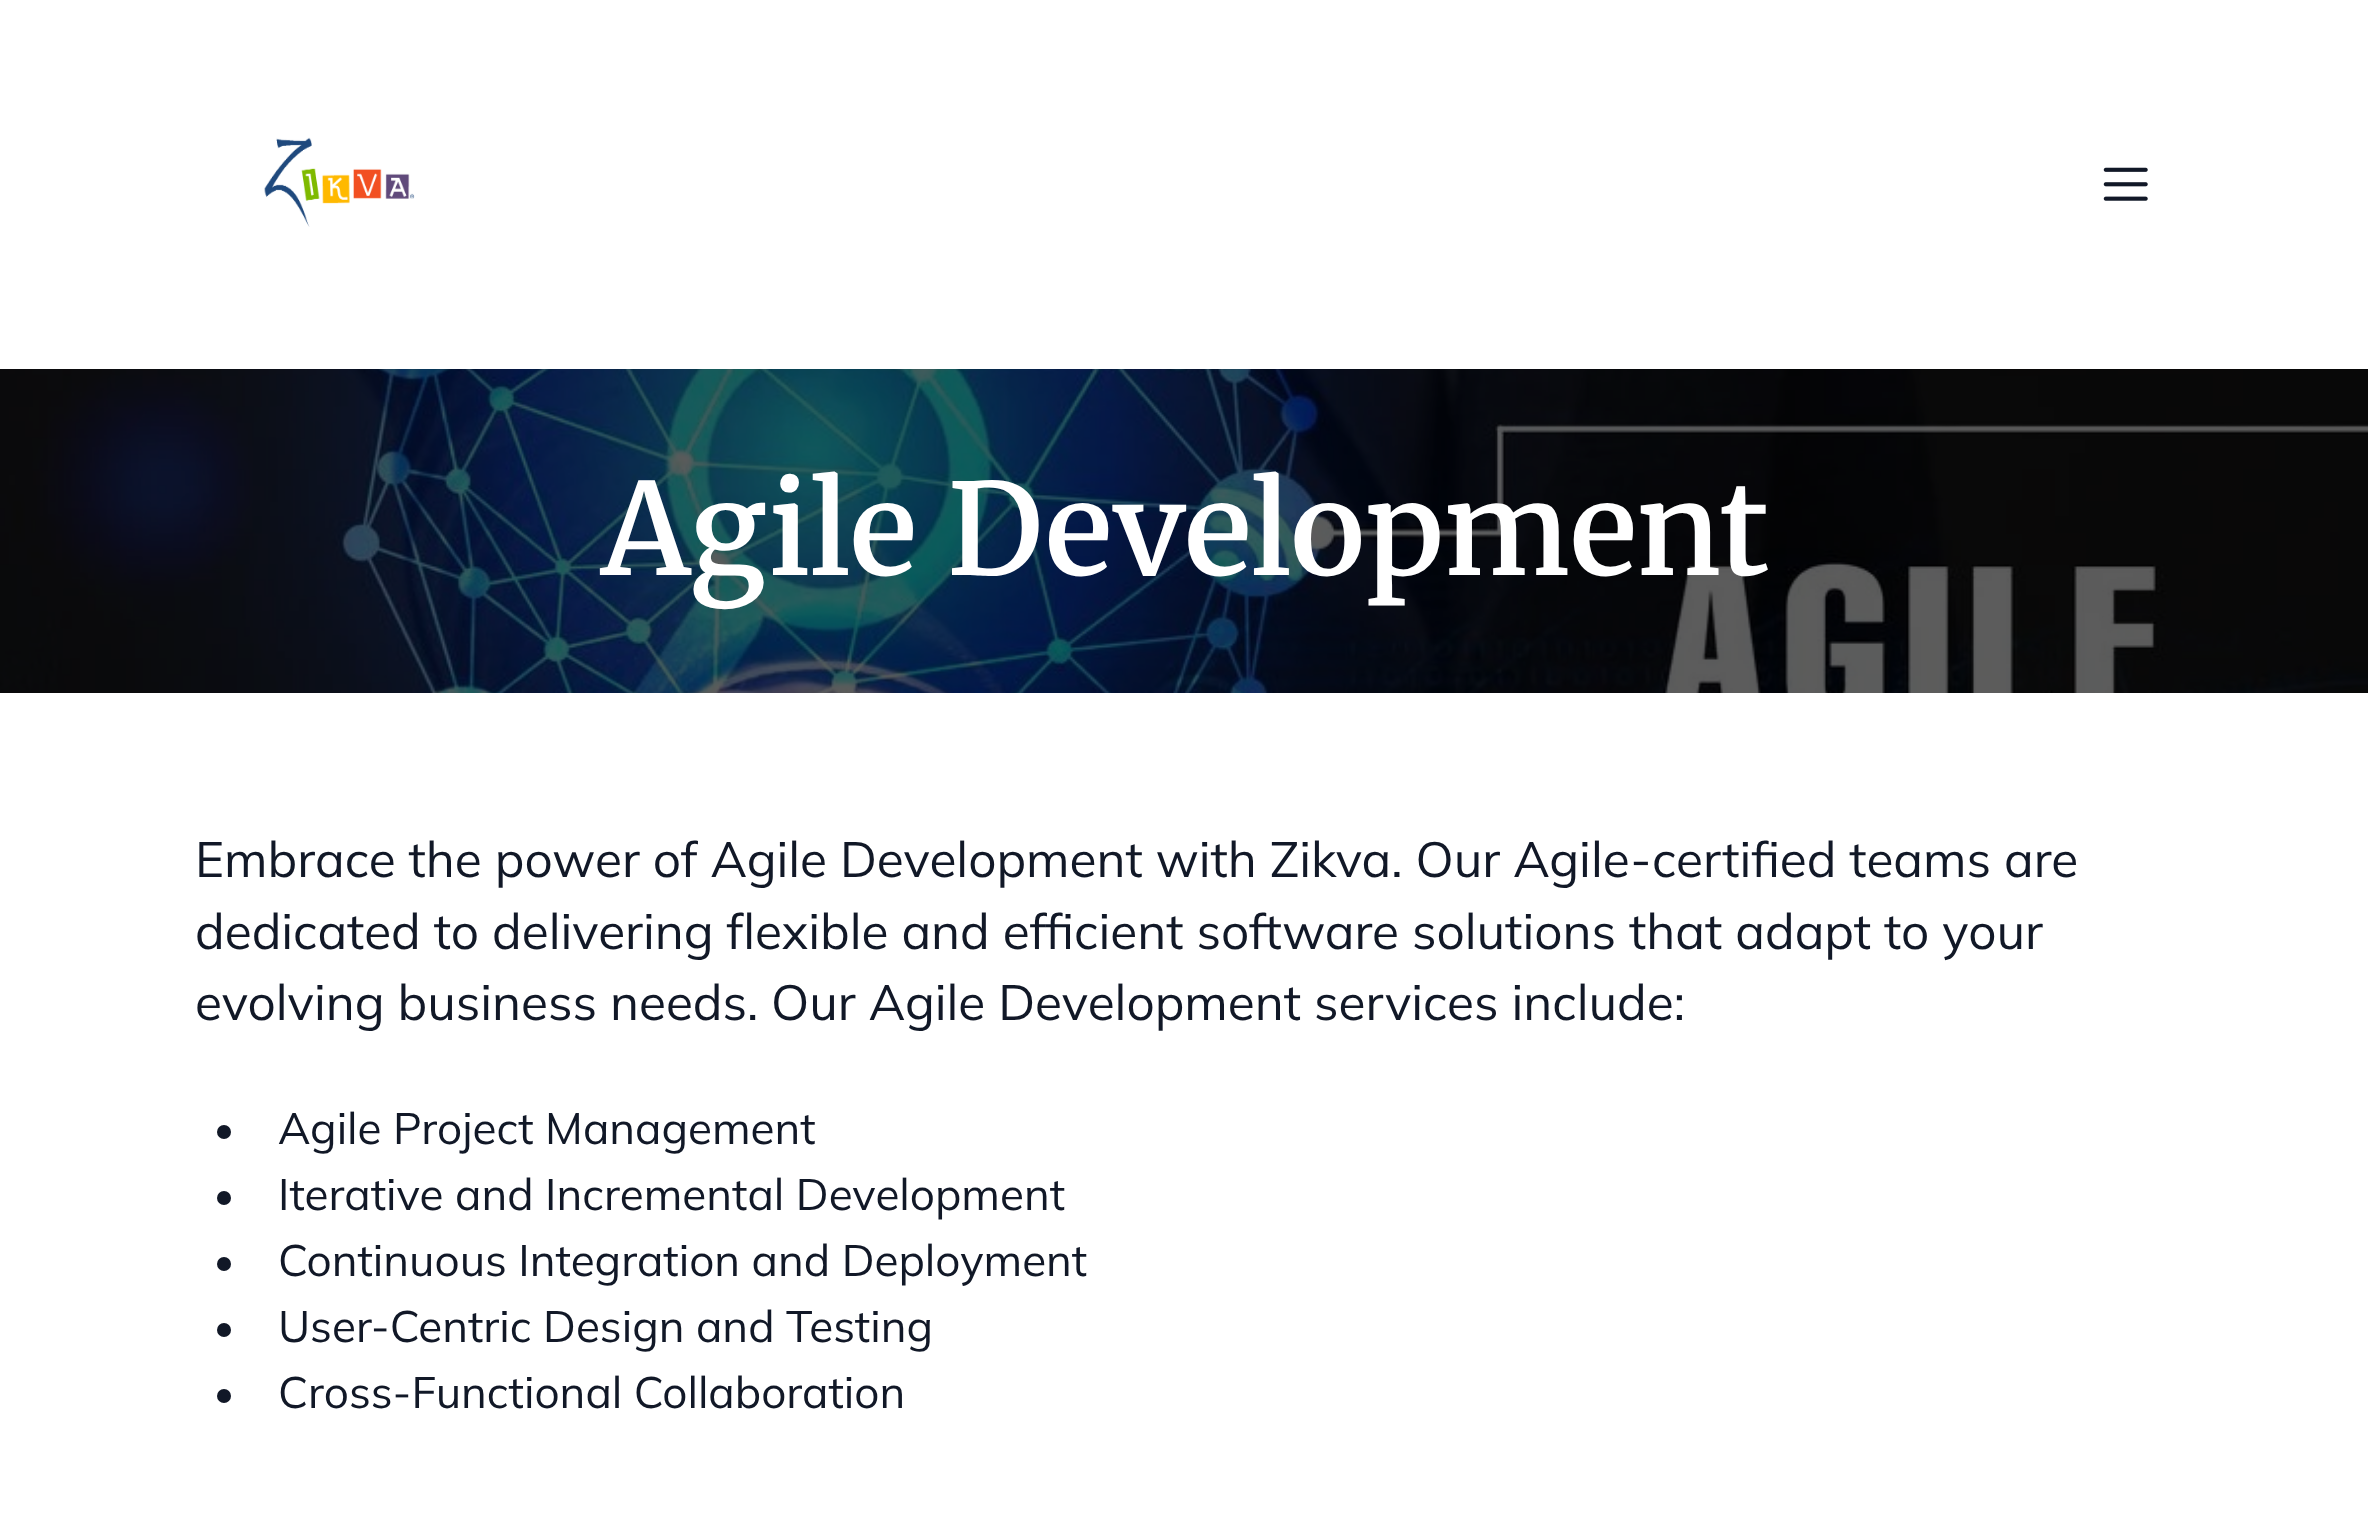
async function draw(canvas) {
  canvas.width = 2368
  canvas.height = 1524
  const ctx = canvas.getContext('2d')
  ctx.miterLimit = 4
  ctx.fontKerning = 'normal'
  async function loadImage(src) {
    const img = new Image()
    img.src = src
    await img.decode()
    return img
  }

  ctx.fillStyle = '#fff'
  ctx.fillRect(0, 0, 2368, 1524)
  ctx.drawImage(await loadImage('image0.png'), 264, 137, 151, 90)
  ctx.drawImage(await loadImage('image1.png'), 2103, 167, 45, 34)
  ctx.drawImage(await loadImage('image2.png'), 0, 369, 2368, 324)
  ctx.font = '600 126.5px Merriweather'
  ctx.fillText('Agile Development', 601, 575)
  ctx.font = '49.5px Mulish'
  ctx.fillStyle = '#111827'
  ctx.fillText('Embrace the power of Agile Development with Zikva. Our Agile-certified teams are', 195, 877)
  ctx.fillText('dedicated to delivering flexible and efficient software solutions that adapt to your', 195, 949)
  ctx.fillText('evolving business needs. Our Agile Development services include:', 195, 1020)
  ctx.beginPath()
  ctx.arc(224, 1132, 7, 0, 2 * Math.PI)
  ctx.fill()
  ctx.font = '44px Mulish'
  ctx.fillText('Agile Project Management', 278, 1144)
  ctx.beginPath()
  ctx.arc(224, 1198, 7, 0, 2 * Math.PI)
  ctx.fill()
  ctx.fillText('Iterative and Incremental Development', 278, 1210)
  ctx.beginPath()
  ctx.arc(224, 1264, 7, 0, 2 * Math.PI)
  ctx.fill()
  ctx.fillText('Continuous Integration and Deployment', 278, 1276)
  ctx.beginPath()
  ctx.arc(224, 1330, 7, 0, 2 * Math.PI)
  ctx.fill()
  ctx.fillText('User-Centric Design and Testing', 278, 1342)
  ctx.beginPath()
  ctx.arc(224, 1396, 7, 0, 2 * Math.PI)
  ctx.fill()
  ctx.fillText('Cross-Functional Collaboration', 278, 1408)
}

draw(document.querySelector('canvas'))
